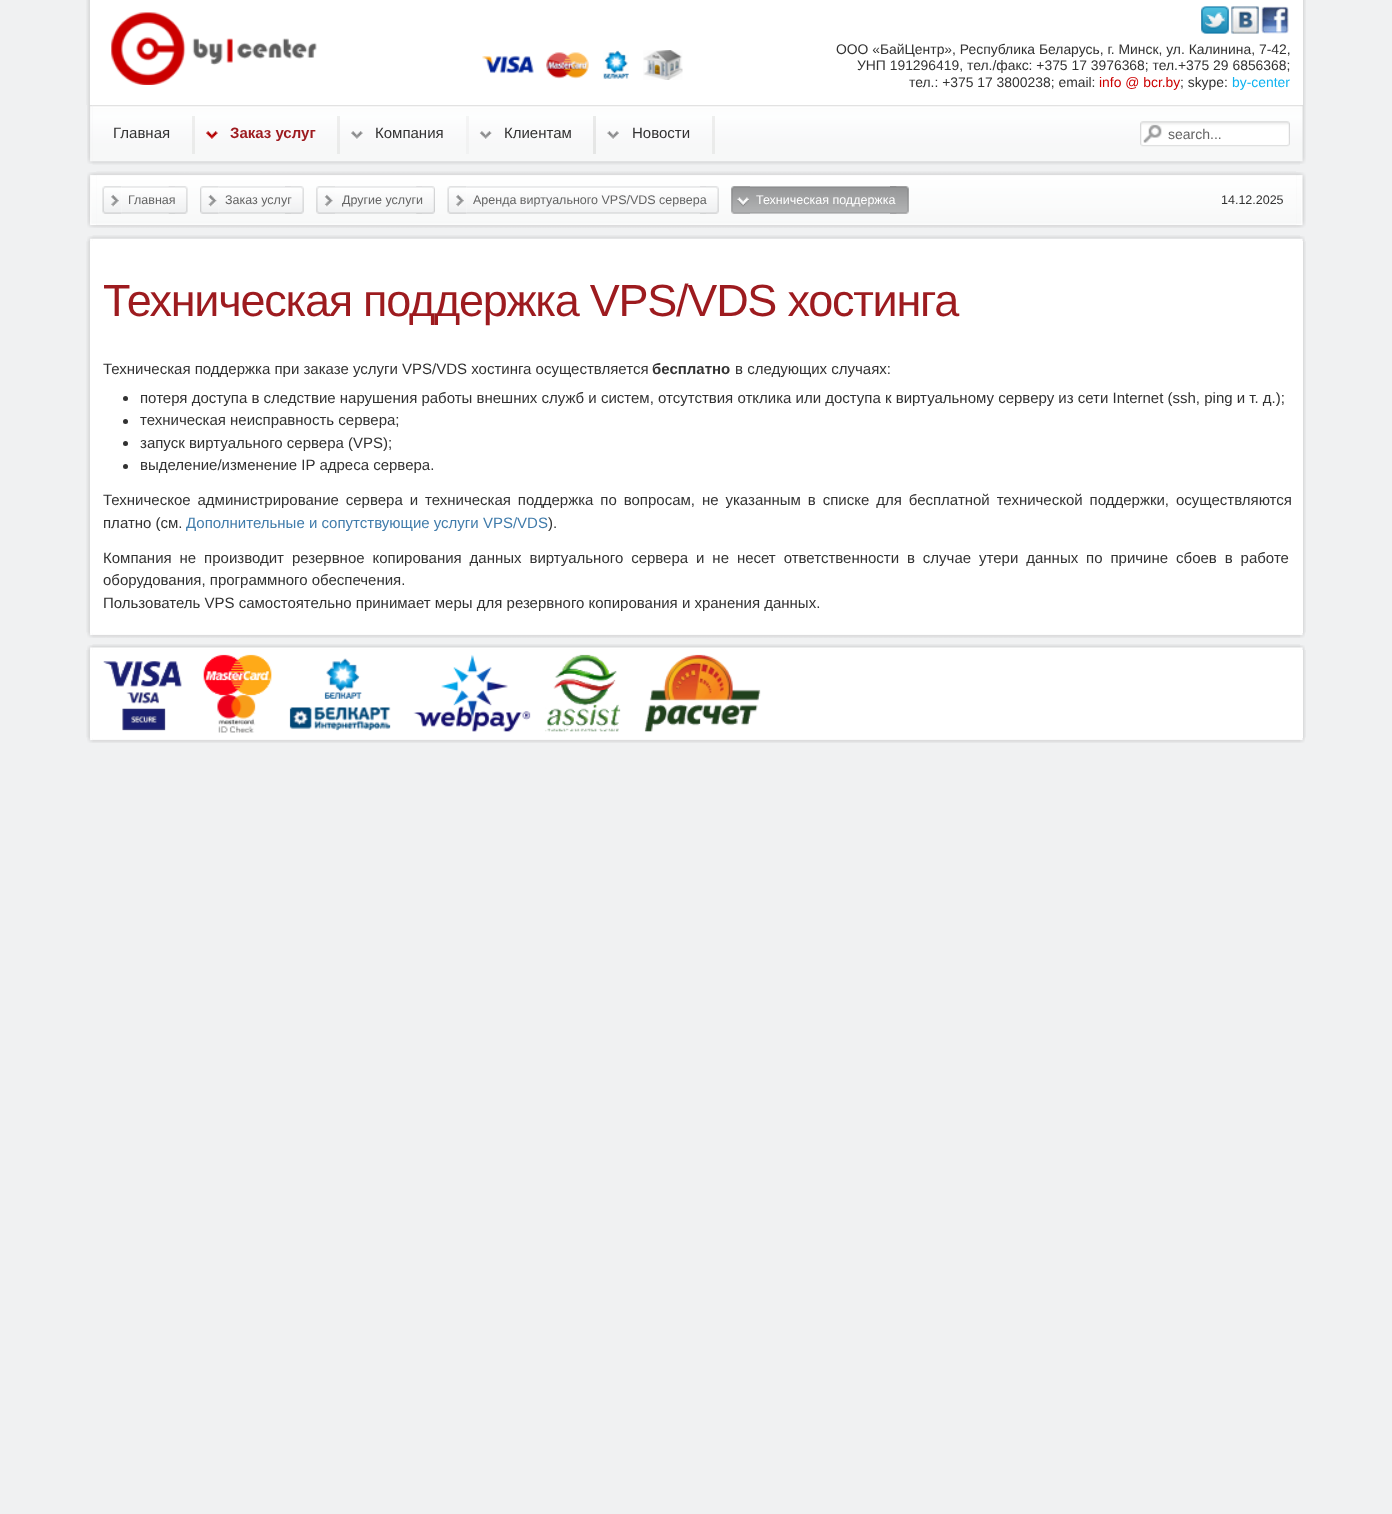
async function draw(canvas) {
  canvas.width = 1392
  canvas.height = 1514
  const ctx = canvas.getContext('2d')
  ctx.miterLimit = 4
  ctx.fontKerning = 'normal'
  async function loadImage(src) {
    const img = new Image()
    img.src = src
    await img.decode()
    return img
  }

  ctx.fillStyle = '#f0f1f2'
  ctx.fillRect(0, 0, 1392, 1514)
  ctx.fillStyle = '#fff'
  ctx.fillRect(90, 0, 1213, 105)
  ctx.drawImage(await loadImage('image0.png'), 111, 12, 206, 73)
  ctx.drawImage(await loadImage('image1.png'), 86, 0, 4, 105)
  ctx.drawImage(await loadImage('image2.png'), 1303, 0, 3, 105)
  ctx.drawImage(await loadImage('image3.png'), 1201, 6, 28, 28)
  ctx.drawImage(await loadImage('image4.png'), 1231, 6, 28, 28)
  ctx.drawImage(await loadImage('image5.png'), 1261, 6, 28, 28)
  ctx.drawImage(await loadImage('image6.png'), 482, 55, 52, 19)
  ctx.drawImage(await loadImage('image7.png'), 546, 52, 43, 27)
  ctx.drawImage(await loadImage('image8.png'), 603, 50, 26, 29)
  ctx.drawImage(await loadImage('image9.png'), 643, 50, 40, 30)
  ctx.font = '13.9px Liberation Sans'
  ctx.fillStyle = '#323232'
  ctx.fillText('OOO «БайЦентр», Республика Беларусь, г. Минск, ул. Калинина, 7-42,', 836, 54)
  ctx.fillText('УНП 191296419, тел./факс: +375 17 3976368; тел.+375 29 6856368;', 857, 70)
  ctx.fillText('тел.: +375 17 3800238; email:', 909, 87)
  ctx.fillStyle = '#c00'
  ctx.fillText('info @ bcr.by', 1099, 87)
  ctx.fillStyle = '#323232'
  ctx.fillText('; skype:', 1180, 87)
  ctx.fillStyle = '#0fb3f1'
  ctx.fillText('by-center', 1232, 87)
  ctx.drawImage(await loadImage('image10.png'), 87, 105, 6, 59)
  ctx.drawImage(await loadImage('image11.png'), 1300, 105, 6, 59)
  ctx.drawImage(await loadImage('image12.png'), 92, 105, 1208, 60)
  ctx.fillStyle = '#d1d1ce54'
  ctx.fillRect(192, 116, 3, 38)
  ctx.font = '15px Liberation Sans'
  ctx.fillStyle = '#323232'
  ctx.fillText('Главная', 113, 138)
  ctx.fillStyle = '#d1d1ce54'
  ctx.fillRect(337, 116, 3, 38)
  ctx.drawImage(await loadImage('image13.png'), 206, 131, 12, 9)
  ctx.font = 'bold 15px Liberation Sans'
  ctx.fillStyle = '#9d1b1f'
  ctx.fillText('Заказ услуг', 230, 138)
  ctx.fillStyle = '#ededed8c'
  ctx.fillRect(466, 116, 3, 38)
  ctx.drawImage(await loadImage('image14.png'), 351, 131, 12, 9)
  ctx.font = '15px Liberation Sans'
  ctx.fillStyle = '#323232'
  ctx.fillText('Компания', 375, 138)
  ctx.fillStyle = '#86868029'
  ctx.fillRect(593, 116, 3, 38)
  ctx.drawImage(await loadImage('image15.png'), 479, 131, 13, 9)
  ctx.fillStyle = '#323232'
  ctx.fillText('Клиентам', 504, 138)
  ctx.fillStyle = '#d1d1ce54'
  ctx.fillRect(712, 116, 3, 38)
  ctx.drawImage(await loadImage('image16.png'), 607, 131, 12, 9)
  ctx.fillStyle = '#323232'
  ctx.fillText('Новости', 632, 138)
  ctx.drawImage(await loadImage('image17.png'), 1140, 121, 150, 26)
  ctx.drawImage(await loadImage('image18.png'), 1143, 124, 19, 19)
  ctx.font = '14px Liberation Sans'
  ctx.fillStyle = '#646464'
  ctx.fillText('search...', 1168, 139)
  ctx.drawImage(await loadImage('image19.png'), 87, 172, 10, 56)
  ctx.drawImage(await loadImage('image20.png'), 1296, 172, 10, 56)
  ctx.drawImage(await loadImage('image21.png'), 96, 171, 1201, 57)
  ctx.drawImage(await loadImage('image22.png'), 102, 186, 20, 28)
  ctx.drawImage(await loadImage('image23.png'), 168, 186, 20, 28)
  ctx.drawImage(await loadImage('image24.png'), 121, 186, 54, 28)
  ctx.font = '12.5px Liberation Sans'
  ctx.fillText('Главная', 128, 204)
  ctx.drawImage(await loadImage('image25.png'), 200, 186, 19, 28)
  ctx.drawImage(await loadImage('image26.png'), 285, 186, 19, 28)
  ctx.drawImage(await loadImage('image27.png'), 219, 186, 72, 28)
  ctx.fillText('Заказ услуг', 225, 204)
  ctx.drawImage(await loadImage('image28.png'), 316, 186, 19, 28)
  ctx.drawImage(await loadImage('image29.png'), 416, 186, 19, 28)
  ctx.drawImage(await loadImage('image30.png'), 335, 186, 87, 28)
  ctx.fillText('Другие услуги', 342, 204)
  ctx.drawImage(await loadImage('image22.png'), 447, 186, 20, 28)
  ctx.drawImage(await loadImage('image26.png'), 700, 186, 19, 28)
  ctx.drawImage(await loadImage('image31.png'), 466, 186, 240, 28)
  ctx.fillText('Аренда виртуального VPS/VDS сервера', 473, 204)
  ctx.drawImage(await loadImage('image32.png'), 731, 186, 19, 28)
  ctx.drawImage(await loadImage('image33.png'), 890, 186, 19, 28)
  ctx.drawImage(await loadImage('image34.png'), 750, 186, 147, 28)
  ctx.fillStyle = '#fff'
  ctx.fillText('Техническая поддержка', 756, 204)
  ctx.fillStyle = '#323232'
  ctx.fillText('14.12.2025', 1221, 204)
  ctx.drawImage(await loadImage('image35.png'), 87, 236, 6, 6)
  ctx.drawImage(await loadImage('image36.png'), 1300, 236, 5, 5)
  ctx.drawImage(await loadImage('image37.png'), 92, 235, 1208, 6)
  ctx.drawImage(await loadImage('image38.png'), 86, 241, 4, 392)
  ctx.drawImage(await loadImage('image39.png'), 1303, 241, 3, 392)
  ctx.drawImage(await loadImage('image40.png'), 87, 632, 6, 6)
  ctx.drawImage(await loadImage('image41.png'), 1300, 632, 5, 6)
  ctx.fillStyle = '#fff'
  ctx.fillRect(90, 241, 1213, 392)
  ctx.letterSpacing = '-1.25px'
  ctx.font = '45px Liberation Sans'
  ctx.fillStyle = '#9d1b1f'
  ctx.fillText('Техническая поддержка VPS/VDS хостинга', 103, 316)
  ctx.letterSpacing = '0px'
  ctx.font = '15px Liberation Sans'
  ctx.fillStyle = '#323232'
  ctx.fillText('Техническая поддержка при заказе услуги VPS/VDS хостинга осуществляется', 103, 374)
  ctx.font = 'bold 15px Liberation Sans'
  ctx.fillText('бесплатно', 652, 374)
  ctx.font = '15px Liberation Sans'
  ctx.fillText('в следующих случаях:', 735, 374)
  ctx.beginPath()
  ctx.arc(125.5, 398.5, 2.5, 0, 2 * Math.PI)
  ctx.fill()
  ctx.fillText('потеря доступа в следствие нарушения работы внешних служб и систем, отсутствия отклика или доступа к виртуальному серверу из сети Internet (ssh, ping и т. д.);', 140, 403)
  ctx.beginPath()
  ctx.arc(125.5, 421.5, 2.5, 0, 2 * Math.PI)
  ctx.fill()
  ctx.fillText('техническая неисправность сервера;', 140, 425)
  ctx.beginPath()
  ctx.arc(125.5, 443.5, 2.5, 0, 2 * Math.PI)
  ctx.fill()
  ctx.fillText('запуск виртуального сервера (VPS);', 140, 448)
  ctx.beginPath()
  ctx.arc(125.5, 466.5, 2.5, 0, 2 * Math.PI)
  ctx.fill()
  ctx.fillText('выделение/изменение IP адреса сервера.', 140, 470)
  ctx.wordSpacing = '2.75px'
  ctx.fillText('Техническое администрирование сервера и техническая поддержка по вопросам, не указанным в списке для бесплатной технической поддержки, осуществляются', 103, 505)
  ctx.wordSpacing = '0px'
  ctx.fillText('платно (см.', 103, 528)
  ctx.fillStyle = '#417cab'
  ctx.fillText('Дополнительные и сопутствующие услуги VPS/VDS', 186, 528)
  ctx.fillStyle = '#323232'
  ctx.fillText(').', 548, 528)
  ctx.wordSpacing = '3.75px'
  ctx.fillText('Компания не производит резервное копирования данных виртуального сервера и не несет ответственности в случае утери данных по причине сбоев в работе', 103, 563)
  ctx.wordSpacing = '0px'
  ctx.fillText('оборудования, программного обеспечения.', 103, 585)
  ctx.fillText('Пользователь VPS самостоятельно принимает меры для резервного копирования и хранения данных.', 103, 608)
  ctx.drawImage(await loadImage('image42.png'), 92, 633, 1208, 5)
  ctx.drawImage(await loadImage('image43.png'), 87, 645, 6, 5)
  ctx.drawImage(await loadImage('image44.png'), 1300, 645, 5, 5)
  ctx.drawImage(await loadImage('image45.png'), 92, 644, 1208, 6)
  ctx.drawImage(await loadImage('image46.png'), 86, 650, 4, 88)
  ctx.drawImage(await loadImage('image47.png'), 1303, 650, 3, 88)
  ctx.drawImage(await loadImage('image40.png'), 87, 737, 6, 6)
  ctx.drawImage(await loadImage('image41.png'), 1300, 737, 5, 6)
  ctx.fillStyle = '#fff'
  ctx.fillRect(90, 650, 1213, 88)
  ctx.drawImage(await loadImage('image48.png'), 103, 654, 658, 79)
  ctx.drawImage(await loadImage('image49.png'), 92, 738, 1208, 5)
}

draw(document.querySelector('canvas'))
